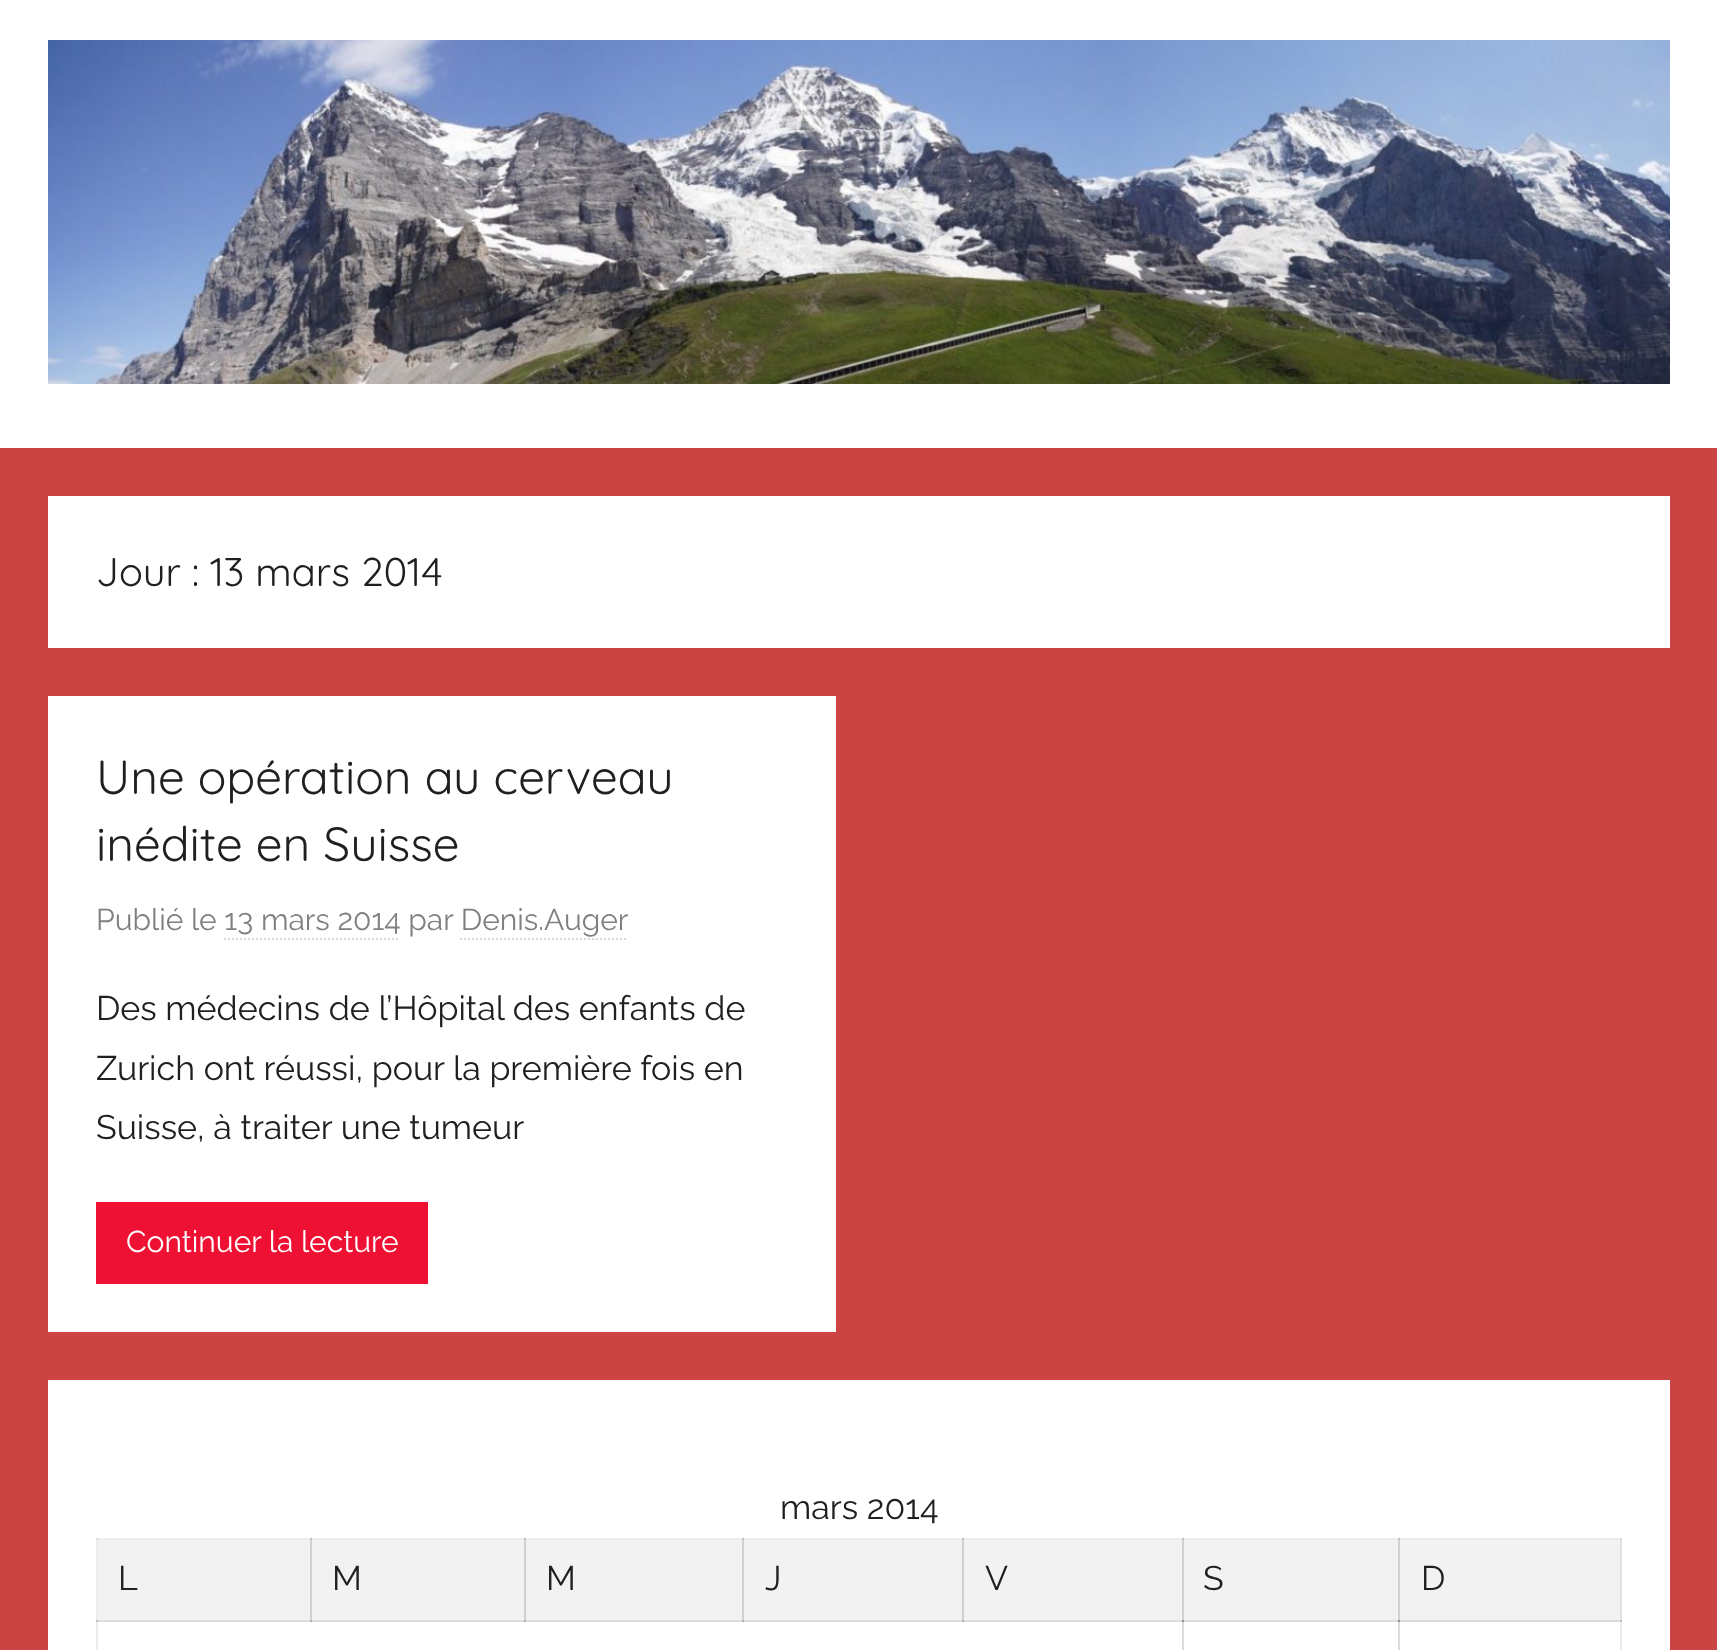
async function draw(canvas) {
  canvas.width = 1717
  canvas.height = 1650
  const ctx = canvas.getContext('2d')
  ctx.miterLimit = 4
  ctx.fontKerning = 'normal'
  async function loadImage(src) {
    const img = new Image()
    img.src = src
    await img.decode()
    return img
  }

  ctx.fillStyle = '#cc4343'
  ctx.fillRect(0, 0, 1717, 1650)
  ctx.fillStyle = '#fff'
  ctx.fillRect(0, 0, 1717, 448)
  ctx.drawImage(await loadImage('image0.png'), 48, 40, 1622, 344)
  ctx.fillRect(48, 496, 1622, 152)
  ctx.font = '300 40px Quicksand'
  ctx.fillStyle = '#202020'
  ctx.fillText('Jour : 13 mars 2014', 96, 586)
  ctx.fillStyle = '#fff'
  ctx.fillRect(48, 696, 788, 636)
  ctx.font = '300 48px Quicksand'
  ctx.fillStyle = '#202020'
  ctx.fillText('Une opération au cerveau', 96, 794)
  ctx.fillText('inédite en Suisse', 96, 861)
  ctx.font = '100 30px Raleway'
  ctx.fillStyle = '#808080'
  ctx.fillText('Publié le 13 mars 2014 par Denis.Auger', 96, 930)
  ctx.beginPath()
  ctx.moveTo(224, 939)
  ctx.lineTo(400, 939)
  ctx.strokeStyle = '#d9d9d9'
  ctx.lineWidth = 2
  ctx.setLineDash([2, 2])
  ctx.stroke()
  ctx.beginPath()
  ctx.moveTo(460, 939)
  ctx.lineTo(628, 939)
  ctx.stroke()
  ctx.font = '100 34px Raleway'
  ctx.fillStyle = '#202020'
  ctx.fillText('Des médecins de l’Hôpital des enfants de', 96, 1020)
  ctx.fillText('Zurich ont réussi, pour la première fois en', 96, 1080)
  ctx.fillText('Suisse, à traiter une tumeur', 96, 1139)
  ctx.fillStyle = '#e13'
  ctx.fillRect(96, 1202, 332, 82)
  ctx.font = '100 30px Raleway'
  ctx.fillStyle = '#fff'
  ctx.fillText('Continuer la lecture', 126, 1252)
  ctx.fillRect(48, 1380, 1622, 270)
  ctx.fillStyle = '#ededed'
  ctx.fillRect(96, 1538, 2, 112)
  ctx.fillRect(96, 1538, 1304, 2)
  ctx.fillStyle = '#dcdcdc'
  ctx.fillRect(96, 1538, 2, 2)
  ctx.fillStyle = '#bfbfbf'
  ctx.fillRect(310, 1538, 2, 2)
  ctx.fillRect(524, 1538, 2, 2)
  ctx.fillRect(742, 1538, 2, 2)
  ctx.fillRect(962, 1538, 2, 2)
  ctx.fillRect(1182, 1538, 2, 2)
  ctx.fillStyle = '#dcdcdc'
  ctx.fillRect(96, 1620, 1088, 2)
  ctx.fillStyle = '#b2b2b2'
  ctx.fillRect(310, 1620, 2, 2)
  ctx.fillRect(524, 1620, 2, 2)
  ctx.fillRect(742, 1620, 2, 2)
  ctx.fillRect(962, 1620, 2, 2)
  ctx.fillStyle = '#bfbfbf'
  ctx.fillRect(96, 1620, 2, 2)
  ctx.fillStyle = '#dcdcdc'
  ctx.fillRect(1182, 1620, 2, 30)
  ctx.fillRect(1182, 1620, 218, 2)
  ctx.fillStyle = '#8f8f8f'
  ctx.fillRect(1182, 1620, 2, 2)
  ctx.fillStyle = '#dcdcdc'
  ctx.fillRect(1398, 1620, 2, 30)
  ctx.fillStyle = '#ededed'
  ctx.fillRect(1620, 1620, 2, 30)
  ctx.font = '100 34px Raleway'
  ctx.fillStyle = '#202020'
  ctx.fillText('mars 2014', 780, 1519)
  ctx.fillStyle = '#f2f2f2'
  ctx.fillRect(98, 1540, 212, 80)
  ctx.fillStyle = '#202020'
  ctx.fillText('L', 118, 1590)
  ctx.fillStyle = '#f2f2f2'
  ctx.fillRect(312, 1540, 212, 80)
  ctx.fillStyle = '#d1d1d1'
  ctx.fillRect(310, 1540, 2, 80)
  ctx.fillStyle = '#202020'
  ctx.fillText('M', 332, 1590)
  ctx.fillStyle = '#f2f2f2'
  ctx.fillRect(526, 1540, 216, 80)
  ctx.fillStyle = '#d1d1d1'
  ctx.fillRect(524, 1540, 2, 80)
  ctx.fillRect(742, 1540, 2, 80)
  ctx.fillStyle = '#202020'
  ctx.fillText('M', 546, 1590)
  ctx.fillStyle = '#f2f2f2'
  ctx.fillRect(744, 1540, 218, 80)
  ctx.fillStyle = '#d1d1d1'
  ctx.fillRect(962, 1540, 2, 80)
  ctx.fillStyle = '#202020'
  ctx.fillText('J', 765, 1590)
  ctx.fillStyle = '#f2f2f2'
  ctx.fillRect(964, 1540, 218, 80)
  ctx.fillStyle = '#202020'
  ctx.fillText('V', 985, 1590)
  ctx.fillStyle = '#f2f2f2'
  ctx.fillRect(1184, 1540, 214, 80)
  ctx.fillStyle = '#d1d1d1'
  ctx.fillRect(1182, 1540, 2, 80)
  ctx.fillRect(1398, 1540, 2, 80)
  ctx.fillStyle = '#202020'
  ctx.fillText('S', 1203, 1590)
  ctx.fillStyle = '#f2f2f2'
  ctx.fillRect(1400, 1540, 220, 80)
  ctx.fillStyle = '#e1e1e1'
  ctx.fillRect(1620, 1540, 2, 80)
  ctx.fillStyle = '#ececec'
  ctx.fillRect(1398, 1538, 224, 2)
  ctx.fillStyle = '#bebebe'
  ctx.fillRect(1398, 1538, 2, 2)
  ctx.fillStyle = '#dbdbdb'
  ctx.fillRect(1620, 1538, 2, 2)
  ctx.fillStyle = '#202020'
  ctx.fillText('D', 1421, 1590)
  ctx.fillStyle = '#dbdbdb'
  ctx.fillRect(1398, 1620, 224, 2)
  ctx.fillStyle = '#8e8e8e'
  ctx.fillRect(1398, 1620, 2, 2)
  ctx.fillStyle = '#bebebe'
  ctx.fillRect(1620, 1620, 2, 2)
}

draw(document.querySelector('canvas'))
